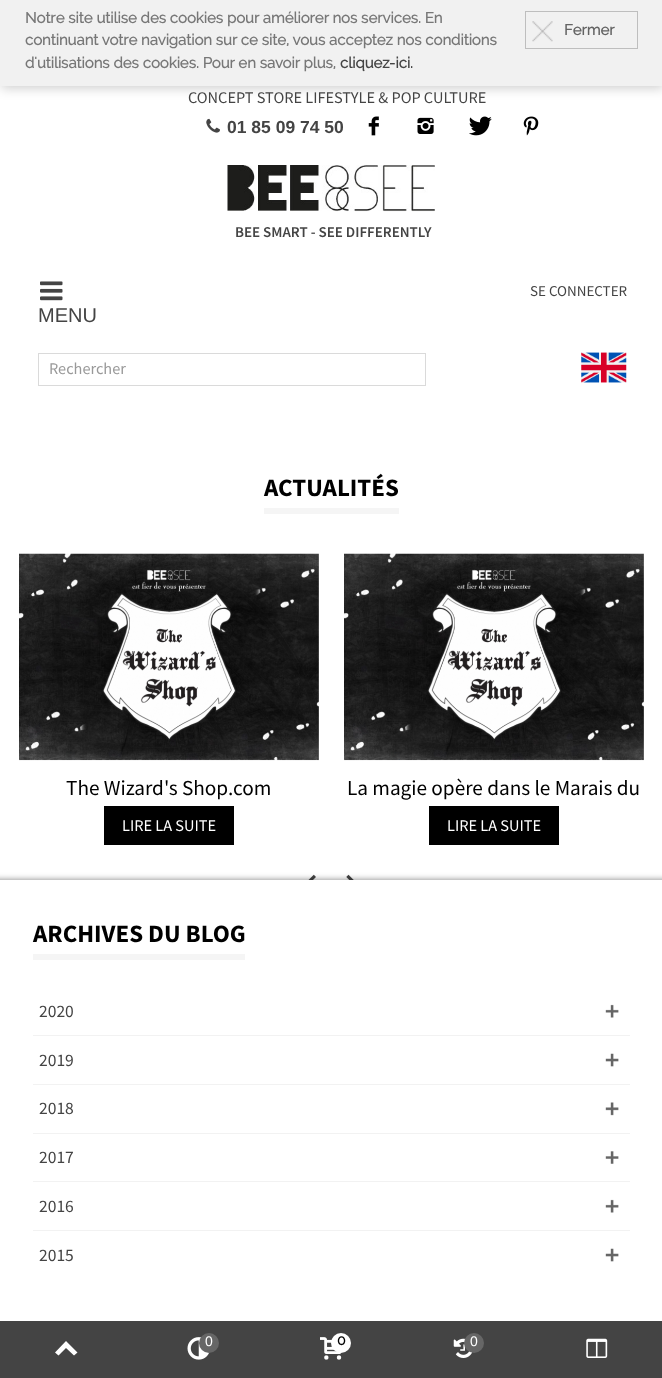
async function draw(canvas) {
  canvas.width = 662
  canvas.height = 1378
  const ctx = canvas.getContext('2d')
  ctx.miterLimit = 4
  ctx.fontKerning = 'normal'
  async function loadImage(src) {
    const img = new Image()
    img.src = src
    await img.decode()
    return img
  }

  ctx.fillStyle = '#fff'
  ctx.fillRect(0, 0, 662, 1378)
  ctx.fillStyle = '#00000033'
  ctx.filter = 'blur(6px)'
  ctx.beginPath()
  ctx.rect(1, 1, 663, 87)
  ctx.fill()
  ctx.filter = 'none'
  ctx.fillStyle = '#f1f1f1'
  ctx.fillRect(0, 0, 662, 86)
  ctx.font = 'bold 15px Raleway'
  ctx.fillStyle = '#777'
  ctx.fillText('Notre site utilise des cookies pour améliorer nos services. En', 25, 23)
  ctx.fillText('continuant votre navigation sur ce site, vous acceptez nos conditions', 25, 45)
  ctx.fillText('d\'utilisations des cookies. Pour en savoir plus,', 25, 68)
  ctx.fillStyle = '#444'
  ctx.fillText('cliquez-ici.', 340, 68)
  ctx.strokeStyle = '#bebebe'
  ctx.strokeRect(525.5, 11.5, 112, 37)
  ctx.drawImage(await loadImage('image0.png'), 532, 21, 21, 21)
  ctx.fillStyle = '#636363'
  ctx.fillText('Fermer', 564, 35)
  ctx.font = '16.25px Source Sans Pro'
  ctx.fillStyle = '#444'
  ctx.fillText('CONCEPT STORE LIFESTYLE & POP CULTURE', 188, 103)
  ctx.drawImage(await loadImage('image1.png'), 206, 118, 14, 15)
  ctx.font = 'bold 17.5px Liberation Sans'
  ctx.fillText('01 85 09 74 50', 227, 133)
  ctx.drawImage(await loadImage('image2.png'), 368, 116, 11, 20)
  ctx.drawImage(await loadImage('image3.png'), 417, 117, 17, 17)
  ctx.drawImage(await loadImage('image4.png'), 469, 116, 23, 20)
  ctx.drawImage(await loadImage('image5.png'), 523, 116, 16, 20)
  ctx.drawImage(await loadImage('image6.png'), 227, 165, 208, 47)
  ctx.font = '600 15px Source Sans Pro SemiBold'
  ctx.fillText('BEE SMART - SEE DIFFERENTLY', 235, 237)
  ctx.font = '15px Source Sans Pro'
  ctx.fillText('SE CONNECTER', 530, 296)
  ctx.drawImage(await loadImage('image7.png'), 581, 352, 46, 31)
  ctx.drawImage(await loadImage('image8.png'), 40, 281, 23, 20)
  ctx.font = '20px Liberation Sans'
  ctx.fillText('MENU', 38, 322)
  ctx.strokeStyle = '#dadada'
  ctx.strokeRect(38.5, 353.5, 387, 32)
  ctx.font = '16.25px Source Sans Pro'
  ctx.fillStyle = '#999'
  ctx.fillText('Rechercher', 49, 374)
  ctx.fillStyle = '#f5f5f5'
  ctx.fillRect(264, 508, 135, 6)
  ctx.font = 'bold 25px Source Sans Pro'
  ctx.fillStyle = '#000'
  ctx.fillText('ACTUALITÉS', 264, 496)
  ctx.drawImage(await loadImage('image9.png'), 19, 553, 300, 208)
  ctx.font = '21.25px Source Sans Pro'
  ctx.fillText('The Wizard\'s Shop.com', 66, 795)
  ctx.fillRect(104, 806, 130, 39)
  ctx.font = '16.25px Source Sans Pro'
  ctx.fillStyle = '#fff'
  ctx.fillText('LIRE LA SUITE', 122, 831)
  ctx.drawImage(await loadImage('image10.png'), 344, 553, 300, 208)
  ctx.font = '21.25px Source Sans Pro'
  ctx.fillStyle = '#000'
  ctx.fillText('La magie opère dans le Marais du', 347, 795)
  ctx.fillRect(429, 806, 130, 39)
  ctx.font = '16.25px Source Sans Pro'
  ctx.fillStyle = '#fff'
  ctx.fillText('LIRE LA SUITE', 447, 831)
  ctx.drawImage(await loadImage('image11.png'), 308, 874, 8, 6)
  ctx.drawImage(await loadImage('image12.png'), 346, 874, 8, 6)
  ctx.fillStyle = '#00000080'
  ctx.filter = 'blur(3px)'
  ctx.beginPath()
  ctx.rect(-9, 880, 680, 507)
  ctx.fill()
  ctx.filter = 'none'
  ctx.fillStyle = '#fff'
  ctx.fillRect(0, 880, 662, 441)
  ctx.fillStyle = '#f5f5f5'
  ctx.fillRect(33, 954, 212, 6)
  ctx.font = 'bold 25px Source Sans Pro'
  ctx.fillStyle = '#000'
  ctx.fillText('ARCHIVES DU BLOG', 33, 942)
  ctx.fillStyle = '#f2f2f2'
  ctx.fillRect(33, 1035, 597, 1)
  ctx.font = '17.5px Source Sans Pro'
  ctx.fillStyle = '#444'
  ctx.fillText('2020', 39, 1017)
  ctx.drawImage(await loadImage('image13.png'), 605, 1004, 14, 14)
  ctx.fillStyle = '#f2f2f2'
  ctx.fillRect(33, 1084, 597, 1)
  ctx.fillStyle = '#444'
  ctx.fillText('2019', 39, 1066)
  ctx.drawImage(await loadImage('image14.png'), 605, 1053, 14, 14)
  ctx.fillStyle = '#f2f2f2'
  ctx.fillRect(33, 1133, 597, 1)
  ctx.fillStyle = '#444'
  ctx.fillText('2018', 39, 1114)
  ctx.drawImage(await loadImage('image15.png'), 605, 1102, 14, 14)
  ctx.fillStyle = '#f2f2f2'
  ctx.fillRect(33, 1181, 597, 1)
  ctx.fillStyle = '#444'
  ctx.fillText('2017', 39, 1163)
  ctx.drawImage(await loadImage('image16.png'), 605, 1151, 14, 13)
  ctx.fillStyle = '#f2f2f2'
  ctx.fillRect(33, 1230, 597, 1)
  ctx.fillStyle = '#444'
  ctx.fillText('2016', 39, 1212)
  ctx.drawImage(await loadImage('image13.png'), 605, 1199, 14, 14)
  ctx.fillText('2015', 39, 1261)
  ctx.drawImage(await loadImage('image14.png'), 605, 1248, 14, 14)
  ctx.fillRect(0, 1321, 662, 57)
  ctx.fillStyle = '#fff'
  ctx.beginPath()
  ctx.moveTo(55, 1352.5)
  ctx.lineTo(66, 1341)
  ctx.lineTo(77.5, 1352.5)
  ctx.lineTo(74, 1355.5)
  ctx.lineTo(66, 1348)
  ctx.lineTo(58.5, 1355.5)
  ctx.closePath()
  ctx.fill()
  ctx.drawImage(await loadImage('image17.png'), 187, 1337, 23, 23)
  ctx.fillStyle = '#666'
  ctx.beginPath()
  ctx.arc(209, 1343, 10, 0, 2 * Math.PI)
  ctx.fill()
  ctx.font = '14px Liberation Sans'
  ctx.fillStyle = '#fff'
  ctx.fillText('0', 205, 1346)
  ctx.drawImage(await loadImage('image18.png'), 320, 1337, 22, 23)
  ctx.beginPath()
  ctx.arc(341, 1343, 10, 0, 2 * Math.PI)
  ctx.fill()
  ctx.font = 'bold 14px Raleway'
  ctx.fillStyle = '#000'
  ctx.fillText('0', 337, 1345)
  ctx.drawImage(await loadImage('image19.png'), 453, 1338, 20, 20)
  ctx.fillStyle = '#666'
  ctx.beginPath()
  ctx.arc(474, 1343, 10, 0, 2 * Math.PI)
  ctx.fill()
  ctx.font = '14px Liberation Sans'
  ctx.fillStyle = '#fff'
  ctx.fillText('0', 470, 1346)
  ctx.drawImage(await loadImage('image20.png'), 586, 1338, 22, 20)
}

draw(document.querySelector('canvas'))
